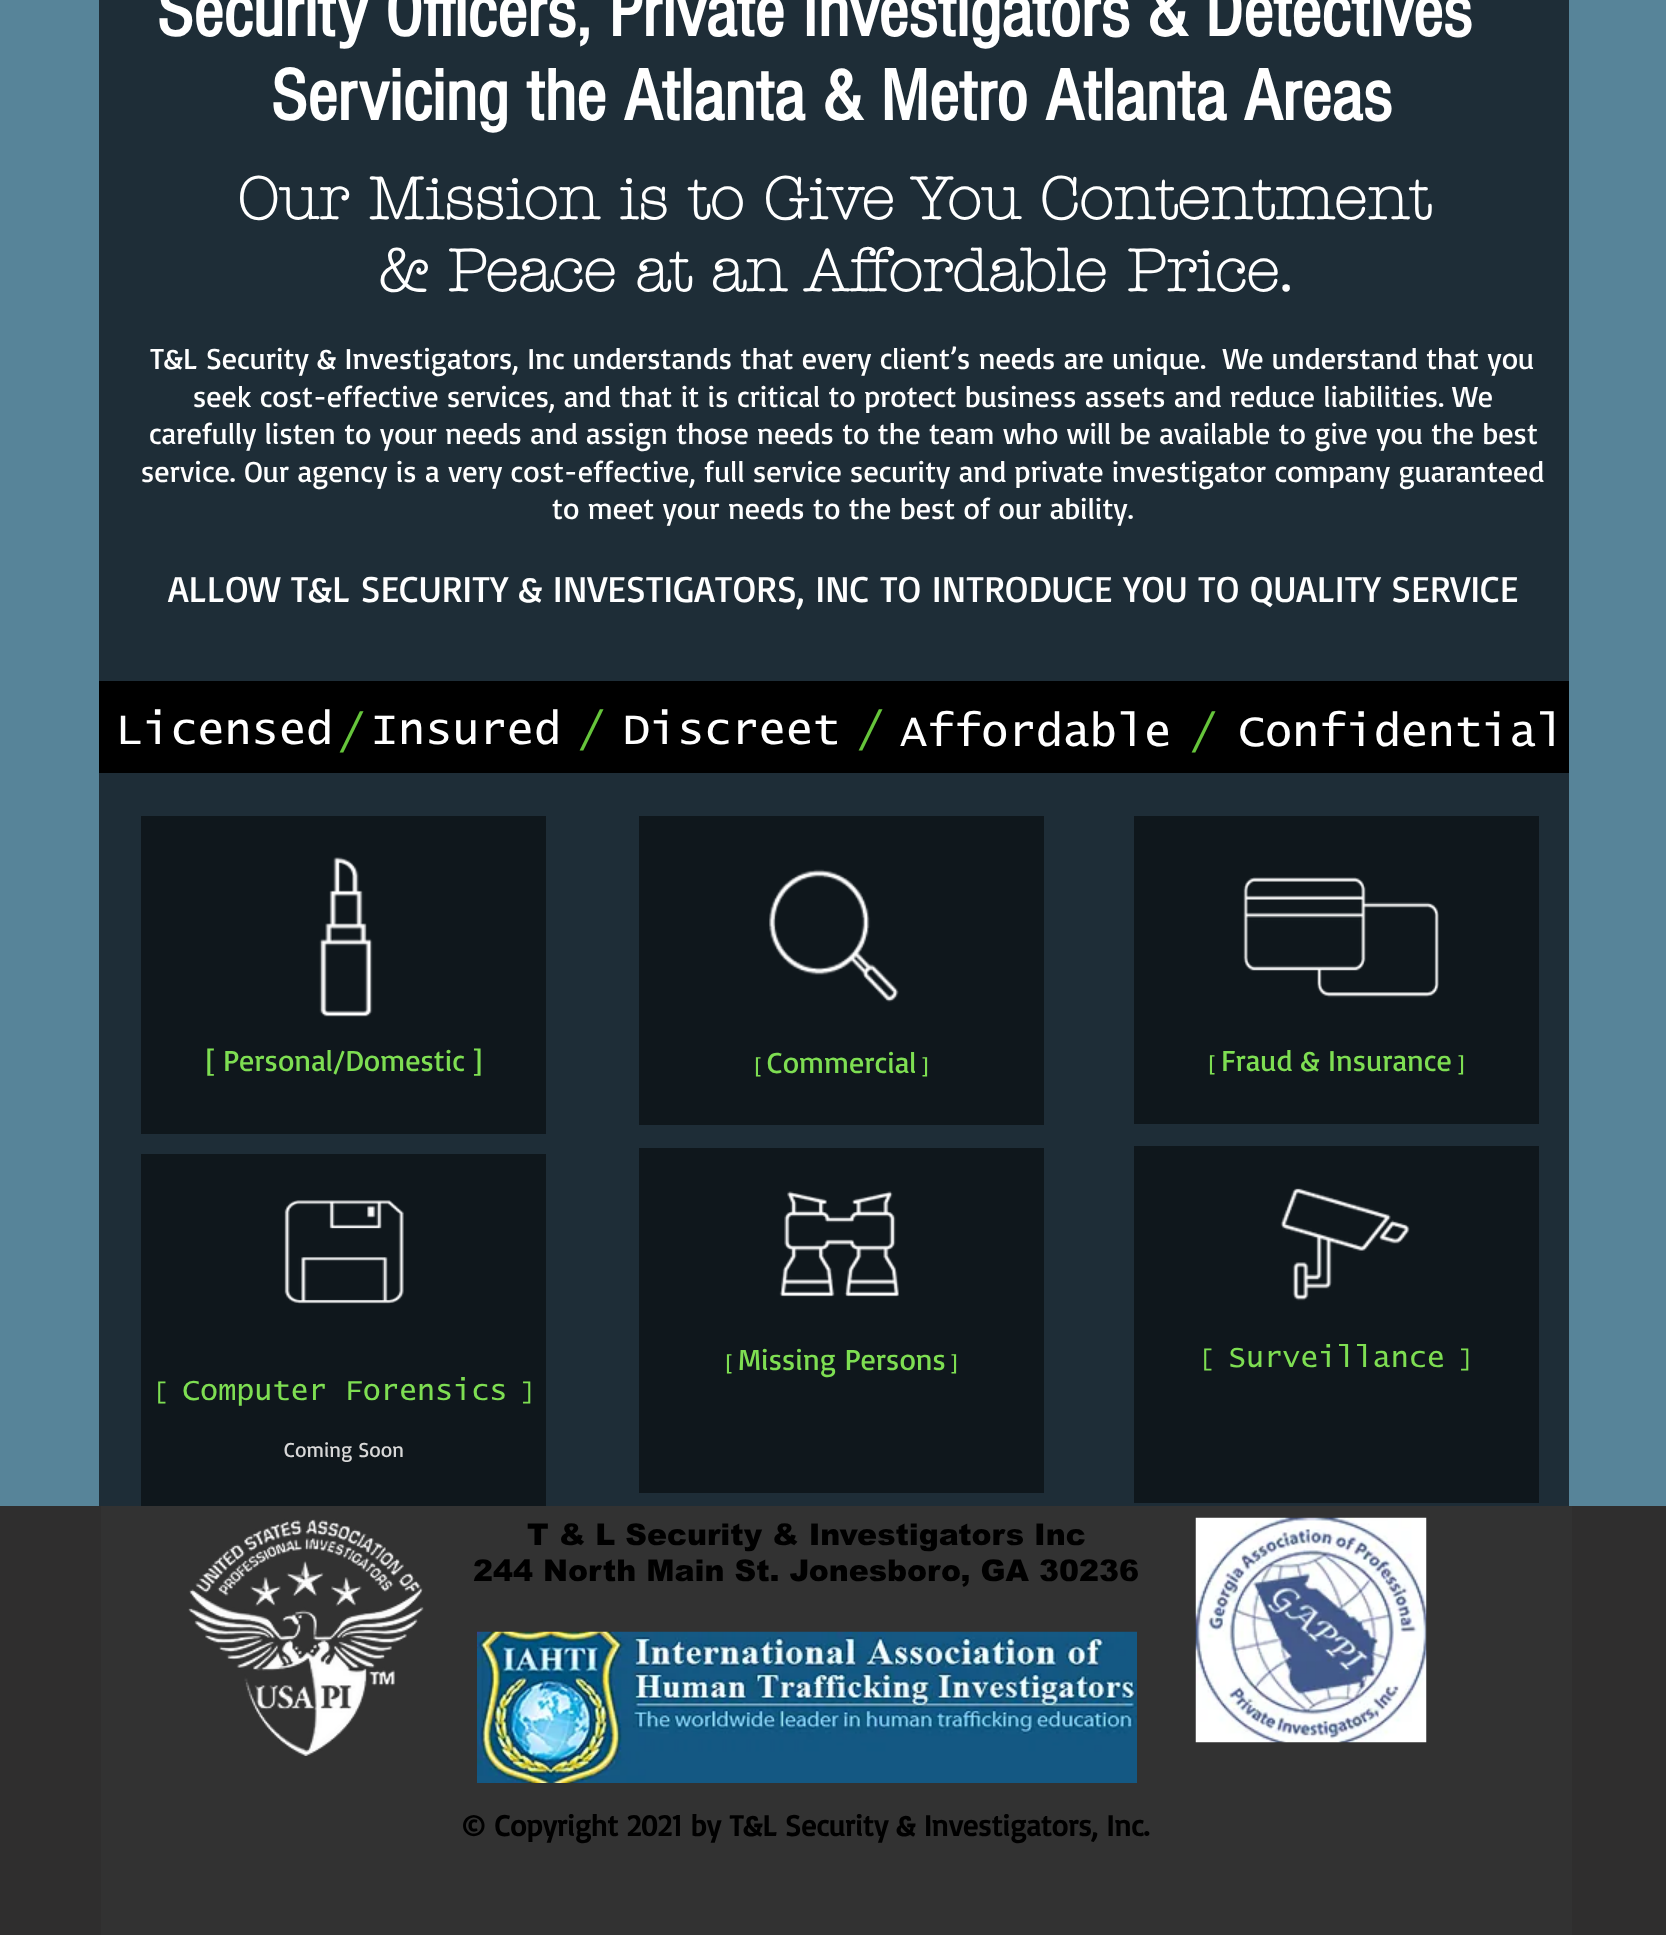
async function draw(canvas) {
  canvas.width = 1666
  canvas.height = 1935
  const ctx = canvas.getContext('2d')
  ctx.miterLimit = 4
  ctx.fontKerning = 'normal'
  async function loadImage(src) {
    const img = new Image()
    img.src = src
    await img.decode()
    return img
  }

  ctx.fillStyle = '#578499'
  ctx.fillRect(0, 0, 1666, 1935)
  ctx.fillStyle = '#1e2d37'
  ctx.fillRect(99, 0, 1470, 1506)
  ctx.font = 'bold 75px "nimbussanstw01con"'
  ctx.fillStyle = '#fff'
  ctx.fillText('Security Officers, Private Investigators & Detectives', 157, 36)
  ctx.fillText('Servicing the Atlanta & Metro Atlanta Areas', 271, 120)
  ctx.font = 'bold 60px "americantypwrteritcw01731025"'
  ctx.fillText('Our Mission is to Give You Contentment', 237, 219)
  ctx.fillText('& Peace at an Affordable Price.', 377, 291)
  ctx.font = '30px Basic'
  ctx.fillText('T&L Security & Investigators, Inc understands that every client’s needs are unique.  We understand that you', 150, 369)
  ctx.fillText('seek cost-effective services, and that it is critical to protect business assets and reduce liabilities. We', 193, 407)
  ctx.fillText('carefully listen to your needs and assign those needs to the team who will be available to give you the best', 149, 444)
  ctx.fillText('service. Our agency is a very cost-effective, full service security and private investigator company guaranteed', 141, 482)
  ctx.fillText('to meet your needs to the best of our ability.', 552, 519)
  ctx.font = '37.5px Basic'
  ctx.fillText('ALLOW T&L SECURITY & INVESTIGATORS, INC TO INTRODUCE YOU TO QUALITY SERVICE', 168, 602)
  ctx.fillStyle = '#000'
  ctx.fillRect(99, 681, 1470, 92)
  ctx.font = '45px "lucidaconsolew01"'
  ctx.fillStyle = '#fff'
  ctx.fillText('Licensed', 116, 744)
  ctx.fillStyle = '#66c53b'
  ctx.fillText('/', 338, 746)
  ctx.fillStyle = '#fff'
  ctx.fillText('Insured', 371, 744)
  ctx.fillStyle = '#66c53b'
  ctx.fillText('/', 578, 744)
  ctx.fillStyle = '#fff'
  ctx.fillText('Discreet', 623, 744)
  ctx.fillStyle = '#66c53b'
  ctx.fillText('/', 857, 744)
  ctx.fillStyle = '#fff'
  ctx.fillText('Affordable', 900, 746)
  ctx.fillStyle = '#66c53b'
  ctx.fillText('/', 1190, 746)
  ctx.fillStyle = '#fff'
  ctx.fillText('Confidential', 1238, 746)
  ctx.fillStyle = '#0f171c'
  ctx.fillRect(141, 816, 405, 318)
  ctx.drawImage(await loadImage('image0.png'), 319, 857, 54, 160)
  ctx.font = '30px Basic'
  ctx.fillStyle = '#7ede52'
  ctx.fillText('[ Personal/Domestic ]', 206, 1071)
  ctx.fillStyle = '#0f171c'
  ctx.fillRect(639, 816, 405, 309)
  ctx.drawImage(await loadImage('image1.png'), 769, 869, 130, 133)
  ctx.font = '21px Basic'
  ctx.fillStyle = '#7ede52'
  ctx.fillText('[', 755, 1073)
  ctx.font = '30px Basic'
  ctx.fillText('Commercial', 767, 1073)
  ctx.font = '21px Basic'
  ctx.fillText(']', 922, 1073)
  ctx.fillStyle = '#0f171c'
  ctx.fillRect(1134, 816, 405, 308)
  ctx.drawImage(await loadImage('image2.png'), 1243, 877, 196, 121)
  ctx.fillStyle = '#7ede52'
  ctx.fillText('[', 1209, 1071)
  ctx.font = '30px Basic'
  ctx.fillText('Fraud & Insurance', 1221, 1071)
  ctx.font = '21px Basic'
  ctx.fillText(']', 1458, 1071)
  ctx.fillStyle = '#0f171c'
  ctx.fillRect(639, 1148, 405, 345)
  ctx.drawImage(await loadImage('image3.png'), 779, 1191, 120, 106)
  ctx.fillStyle = '#7ede52'
  ctx.fillText('[', 726, 1370)
  ctx.font = '30px Basic'
  ctx.fillText('Missing Persons', 738, 1370)
  ctx.font = '21px Basic'
  ctx.fillText(']', 951, 1370)
  ctx.fillStyle = '#0f171c'
  ctx.fillRect(1134, 1146, 405, 357)
  ctx.drawImage(await loadImage('image4.png'), 1280, 1188, 130, 113)
  ctx.font = '24px "lucidaconsolew01"'
  ctx.fillStyle = '#7ede52'
  ctx.fillText('[', 1199, 1367)
  ctx.font = '30px "lucidaconsolew01"'
  ctx.fillText('Surveillance', 1228, 1367)
  ctx.font = '24px "lucidaconsolew01"'
  ctx.fillText(']', 1459, 1367)
  ctx.fillStyle = '#0f171c'
  ctx.fillRect(141, 1154, 405, 352)
  ctx.drawImage(await loadImage('image5.png'), 284, 1200, 120, 104)
  ctx.fillStyle = '#7ede52'
  ctx.fillText('[', 153, 1400)
  ctx.font = '30px "lucidaconsolew01"'
  ctx.fillText('Computer Forensics', 182, 1400)
  ctx.font = '24px "lucidaconsolew01"'
  ctx.fillText(']', 521, 1400)
  ctx.font = '21px Basic'
  ctx.fillStyle = '#d8d8d8'
  ctx.fillText('Coming Soon', 284, 1457)
  ctx.fillStyle = '#2f2e2e'
  ctx.fillRect(0, 1506, 1666, 429)
  ctx.fillStyle = '#323232'
  ctx.fillRect(101, 1506, 1471, 429)
  ctx.drawImage(await loadImage('image6.png'), 188, 1519, 236, 237)
  ctx.font = '900 30px arial'
  ctx.fillStyle = '#000'
  ctx.fillText('T & L Security & Investigators Inc', 527, 1545)
  ctx.fillText('244 North Main St. Jonesboro, GA 30236', 473, 1581)
  ctx.drawImage(await loadImage('image7.png'), 1195, 1517, 232, 226)
  ctx.drawImage(await loadImage('image8.png'), 477, 1631, 660, 152)
  ctx.font = 'bold 30px Basic'
  ctx.fillText('© Copyright 2021 by T&L Security & Investigators, Inc.', 461, 1836)
}

draw(document.querySelector('canvas'))
